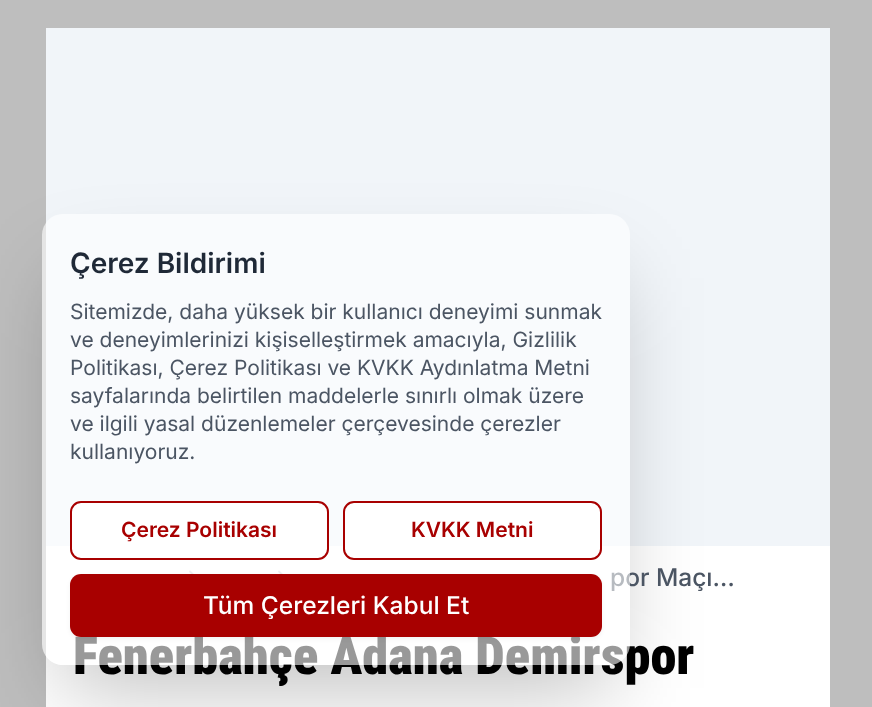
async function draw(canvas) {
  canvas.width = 872
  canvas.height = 707
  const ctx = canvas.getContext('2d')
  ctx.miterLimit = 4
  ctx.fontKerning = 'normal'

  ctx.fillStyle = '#bebebe'
  ctx.fillRect(0, 0, 872, 707)
  ctx.fillStyle = '#f1f5f9'
  ctx.fillRect(46, 28, 784, 518)
  ctx.fillStyle = '#fff'
  ctx.fillRect(46, 546, 784, 161)
  ctx.beginPath()
  ctx.moveTo(190, 571.5)
  ctx.lineTo(196, 577.5)
  ctx.lineTo(190, 583.5)
  ctx.strokeStyle = '#d1d5db'
  ctx.lineWidth = 1.8
  ctx.lineCap = 'round'
  ctx.lineJoin = 'round'
  ctx.stroke()
  ctx.beginPath()
  ctx.moveTo(279, 571.5)
  ctx.lineTo(285, 577.5)
  ctx.lineTo(279, 583.5)
  ctx.stroke()
  ctx.save()
  ctx.beginPath()
  ctx.moveTo(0, 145)
  ctx.lineTo(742, 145)
  ctx.lineTo(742, 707)
  ctx.lineTo(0, 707)
  ctx.closePath()
  ctx.moveTo(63, 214)
  ctx.lineTo(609, 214)
  ctx.bezierCurveTo(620.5, 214, 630, 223.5, 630, 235)
  ctx.lineTo(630, 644)
  ctx.bezierCurveTo(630, 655.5, 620.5, 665, 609, 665)
  ctx.lineTo(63, 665)
  ctx.bezierCurveTo(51.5, 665, 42, 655.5, 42, 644)
  ctx.lineTo(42, 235)
  ctx.bezierCurveTo(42, 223.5, 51.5, 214, 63, 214)
  ctx.closePath()
  ctx.clip('evenodd')
  ctx.fillStyle = '#00000040'
  ctx.filter = 'blur(44px)'
  ctx.beginPath()
  ctx.rect(63, 278, 546, 410)
  ctx.fill()
  ctx.filter = 'none'
  ctx.restore()
  ctx.font = '500 24.5px Inter'
  ctx.fillStyle = '#4b5563'
  ctx.fillText('por Maçı…', 610, 586)
  ctx.font = '900 52.5px Roboto Condensed'
  ctx.fillStyle = '#000'
  ctx.fillText('Fenerbahçe Adana Demirspor', 73, 674)
  ctx.fillStyle = '#ffffff99'
  ctx.beginPath()
  ctx.roundRect(42, 214, 588, 451, 21)
  ctx.fill()
  ctx.font = '600 28px Inter'
  ctx.fillStyle = '#1f2937'
  ctx.fillText('Çerez Bildirimi', 70, 273)
  ctx.font = '21px Inter'
  ctx.fillStyle = '#4b5563'
  ctx.fillText('Sitemizde, daha yüksek bir kullanıcı deneyimi sunmak', 70, 319)
  ctx.fillText('ve deneyimlerinizi kişiselleştirmek amacıyla, Gizlilik', 70, 347)
  ctx.fillText('Politikası, Çerez Politikası ve KVKK Aydınlatma Metni', 70, 375)
  ctx.fillText('sayfalarında belirtilen maddelerle sınırlı olmak üzere', 70, 403)
  ctx.fillText('ve ilgili yasal düzenlemeler çerçevesinde çerezler', 70, 431)
  ctx.fillText('kullanıyoruz.', 70, 459)
  ctx.fillStyle = '#fff'
  ctx.beginPath()
  ctx.roundRect(71, 502, 257, 57, 10)
  ctx.fill()
  ctx.strokeStyle = '#a80000'
  ctx.lineWidth = 2
  ctx.lineJoin = 'miter'
  ctx.stroke()
  ctx.font = '600 21px Inter'
  ctx.fillStyle = '#a80000'
  ctx.fillText('Çerez Politikası', 121, 537)
  ctx.fillStyle = '#fff'
  ctx.beginPath()
  ctx.roundRect(344, 502, 257, 57, 10)
  ctx.fill()
  ctx.stroke()
  ctx.fillStyle = '#a80000'
  ctx.fillText('KVKK Metni', 411, 537)
  ctx.fillStyle = '#0000000d'
  ctx.filter = 'blur(2px)'
  ctx.beginPath()
  ctx.roundRect(70, 576, 532, 63, 11)
  ctx.fill()
  ctx.filter = 'none'
  ctx.fillStyle = '#a80000'
  ctx.beginPath()
  ctx.roundRect(70, 574, 532, 63, 11)
  ctx.fill()
  ctx.font = '500 24.5px Inter'
  ctx.fillStyle = '#fff'
  ctx.fillText('Tüm Çerezleri Kabul Et', 203, 614)
}

draw(document.querySelector('canvas'))
